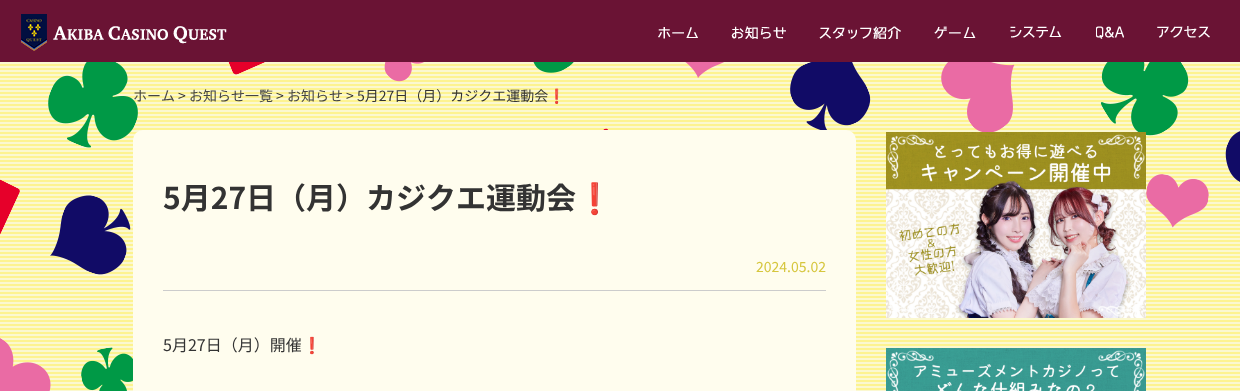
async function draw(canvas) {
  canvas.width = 1240
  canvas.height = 391
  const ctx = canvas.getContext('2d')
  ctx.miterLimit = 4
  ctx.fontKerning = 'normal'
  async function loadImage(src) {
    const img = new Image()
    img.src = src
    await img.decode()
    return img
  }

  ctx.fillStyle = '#6a1334'
  ctx.fillRect(0, 0, 1240, 391)
  ctx.drawImage(await loadImage('image0.png'), 21, 14, 206, 37)
  ctx.drawImage(await loadImage('image1.png'), 658, 27, 40, 12)
  ctx.drawImage(await loadImage('image2.png'), 731, 26, 55, 13)
  ctx.drawImage(await loadImage('image3.png'), 819, 26, 82, 13)
  ctx.drawImage(await loadImage('image4.png'), 934, 26, 42, 13)
  ctx.drawImage(await loadImage('image5.png'), 1010, 26, 52, 12)
  ctx.drawImage(await loadImage('image6.png'), 1096, 26, 28, 13)
  ctx.drawImage(await loadImage('image7.png'), 1157, 26, 53, 12)
  ctx.drawImage(await loadImage('image8.png'), 0, 62, 1240, 329)
  ctx.font = '14px Noto Sans JP'
  ctx.fillStyle = '#454545'
  ctx.fillText('ホーム', 133, 101)
  ctx.fillStyle = '#333'
  ctx.fillText('>', 178, 101)
  ctx.fillStyle = '#454545'
  ctx.fillText('お知らせ一覧', 189, 101)
  ctx.fillStyle = '#333'
  ctx.fillText('>', 276, 101)
  ctx.fillStyle = '#454545'
  ctx.fillText('お知らせ', 287, 101)
  ctx.fillStyle = '#333'
  ctx.fillText('> 5月27日（月）カジクエ運動会', 346, 101)
  ctx.font = '14px Noto Color Emoji'
  ctx.fillText('❗️', 548, 101)
  ctx.fillStyle = '#fffdee'
  ctx.beginPath()
  ctx.roundRect(133, 130, 723, 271, 10)
  ctx.fill()
  ctx.font = 'bold 30px Noto Sans JP'
  ctx.fillStyle = '#333'
  ctx.fillText('5月27日（月）カジクエ運動会', 163, 209)
  ctx.font = 'bold 30px Noto Color Emoji'
  ctx.fillText('❗️', 576, 209)
  ctx.fillStyle = '#ccc'
  ctx.fillRect(163, 290, 663, 1)
  ctx.font = '14px Noto Sans JP'
  ctx.fillStyle = '#d6c63d'
  ctx.fillText('2024.05.02', 756, 272)
  ctx.font = '16px Noto Sans JP'
  ctx.fillStyle = '#333'
  ctx.fillText('5月27日（月）開催', 163, 351)
  ctx.font = '16px Noto Color Emoji'
  ctx.fillText('❗️', 302, 351)
  ctx.drawImage(await loadImage('image9.png'), 886, 132, 260, 186)
  ctx.drawImage(await loadImage('image10.png'), 886, 348, 260, 43)
}

draw(document.querySelector('canvas'))
